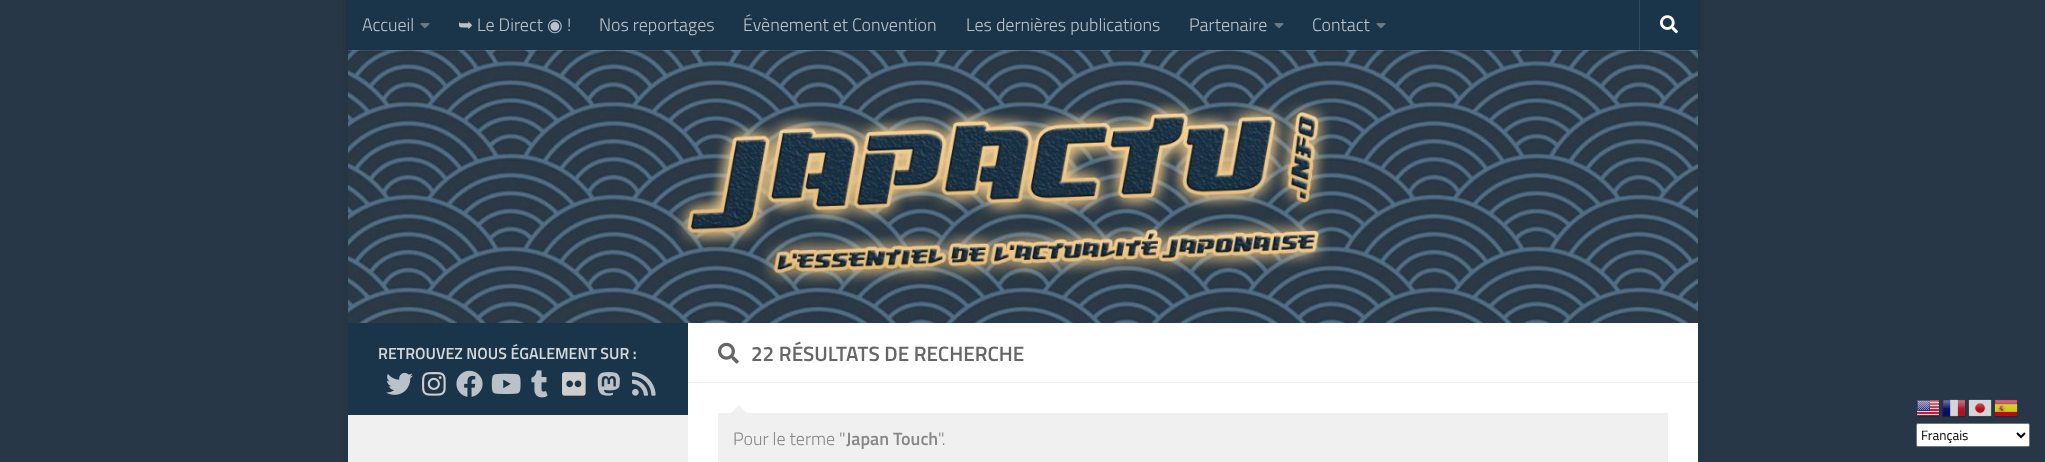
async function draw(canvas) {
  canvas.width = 2045
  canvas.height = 462
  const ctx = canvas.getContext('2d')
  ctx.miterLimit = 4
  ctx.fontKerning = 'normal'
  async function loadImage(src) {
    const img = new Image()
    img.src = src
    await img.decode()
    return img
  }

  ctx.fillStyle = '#283747'
  ctx.fillRect(0, 0, 2045, 462)
  ctx.fillStyle = '#263544'
  ctx.fillRect(342, 0, 6, 462)
  ctx.fillRect(1698, 0, 6, 462)
  ctx.fillStyle = '#1a354a'
  ctx.fillRect(348, 0, 1350, 323)
  ctx.drawImage(await loadImage('image2.png'), 348, 50, 1350, 273)
  ctx.fillStyle = '#ffffff26'
  ctx.fillRect(348, 50, 1350, 1)
  ctx.save()
  ctx.beginPath()
  ctx.moveTo(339, 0)
  ctx.lineTo(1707, 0)
  ctx.lineTo(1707, 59)
  ctx.lineTo(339, 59)
  ctx.closePath()
  ctx.moveTo(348, 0)
  ctx.lineTo(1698, 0)
  ctx.lineTo(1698, 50)
  ctx.lineTo(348, 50)
  ctx.closePath()
  ctx.clip('evenodd')
  ctx.fillStyle = '#00000033'
  ctx.filter = 'blur(2.5px)'
  ctx.beginPath()
  ctx.rect(348, 0, 1350, 50)
  ctx.fill()
  ctx.filter = 'none'
  ctx.restore()
  ctx.font = '300 18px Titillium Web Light'
  ctx.fillStyle = '#bac2c9'
  ctx.fillText('Accueil', 362, 31)
  ctx.drawImage(await loadImage('image0.png'), 420, 23, 10, 6)
  ctx.font = '18px DejaVu Sans'
  ctx.fillText('➥', 458, 31)
  ctx.font = '300 18px Titillium Web Light'
  ctx.fillText('Le Direct', 477, 31)
  ctx.font = '18px DejaVu Sans'
  ctx.fillText('◉', 547, 31)
  ctx.font = '300 18px Titillium Web Light'
  ctx.fillText('!', 567, 31)
  ctx.fillText('Nos reportages', 599, 31)
  ctx.fillText('Évènement et Convention', 743, 31)
  ctx.fillText('Les dernières publications', 966, 31)
  ctx.fillText('Partenaire', 1189, 31)
  ctx.drawImage(await loadImage('image0.png'), 1274, 23, 10, 6)
  ctx.fillText('Contact', 1312, 31)
  ctx.drawImage(await loadImage('image0.png'), 1376, 23, 10, 6)
  ctx.fillStyle = '#31495c'
  ctx.fillRect(1639, 0, 1, 50)
  ctx.drawImage(await loadImage('image1.png'), 1660, 15, 18, 19)
  ctx.fillStyle = '#fff'
  ctx.fillRect(688, 323, 1010, 139)
  ctx.fillStyle = '#1a354a'
  ctx.fillRect(348, 323, 340, 92)
  ctx.font = '600 16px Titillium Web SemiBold'
  ctx.fillStyle = '#d1d7db'
  ctx.fillText('RETROUVEZ NOUS ÉGALEMENT SUR :', 378, 359)
  ctx.drawImage(await loadImage('image3.png'), 386, 372, 27, 23)
  ctx.drawImage(await loadImage('image4.png'), 422, 372, 24, 24)
  ctx.drawImage(await loadImage('image5.png'), 456, 370, 27, 27)
  ctx.drawImage(await loadImage('image6.png'), 491, 373, 30, 21)
  ctx.drawImage(await loadImage('image7.png'), 531, 370, 17, 28)
  ctx.drawImage(await loadImage('image8.png'), 562, 372, 24, 24)
  ctx.drawImage(await loadImage('image9.png'), 597, 372, 23, 24)
  ctx.drawImage(await loadImage('image10.png'), 632, 372, 24, 24)
  ctx.fillStyle = '#eee'
  ctx.fillRect(688, 382, 1010, 1)
  ctx.drawImage(await loadImage('image11.png'), 718, 342, 21, 22)
  ctx.font = '600 20.75px Titillium Web SemiBold'
  ctx.fillStyle = '#666'
  ctx.fillText('22 RÉSULTATS DE RECHERCHE', 751, 361)
  ctx.fillStyle = '#f0f0f0'
  ctx.fillRect(718, 413, 950, 49)
  ctx.fillStyle = '#f1f1f1'
  ctx.beginPath()
  ctx.moveTo(747, 413)
  ctx.lineTo(731, 413)
  ctx.lineTo(739, 405)
  ctx.closePath()
  ctx.fill()
  ctx.font = '300 18px Titillium Web Light'
  ctx.fillStyle = '#888'
  ctx.fillText('Pour le terme "', 733, 445)
  ctx.font = '600 18px Titillium Web SemiBold'
  ctx.fillText('Japan Touch', 846, 445)
  ctx.font = '300 18px Titillium Web Light'
  ctx.fillText('".', 938, 445)
  ctx.fillStyle = '#f0f0f0'
  ctx.fillRect(348, 415, 340, 47)
  ctx.drawImage(await loadImage('image12.png'), 1916, 400, 24, 17)
  ctx.drawImage(await loadImage('image13.png'), 1942, 399, 24, 19)
  ctx.drawImage(await loadImage('image14.png'), 1968, 399, 24, 19)
  ctx.drawImage(await loadImage('image15.png'), 1994, 399, 24, 19)
  ctx.fillStyle = '#fff'
  ctx.beginPath()
  ctx.roundRect(1916.5, 423.5, 113, 23, 1.5)
  ctx.fill()
  ctx.strokeStyle = '#767676'
  ctx.stroke()
  ctx.beginPath()
  ctx.moveTo(2017, 433)
  ctx.lineTo(2021, 437)
  ctx.lineTo(2025, 433)
  ctx.strokeStyle = '#000'
  ctx.lineWidth = 2
  ctx.stroke()
  ctx.font = '13.5px Titillium Web'
  ctx.fillStyle = '#000'
  ctx.fillText('Français', 1921, 440)
}

draw(document.querySelector('canvas'))
